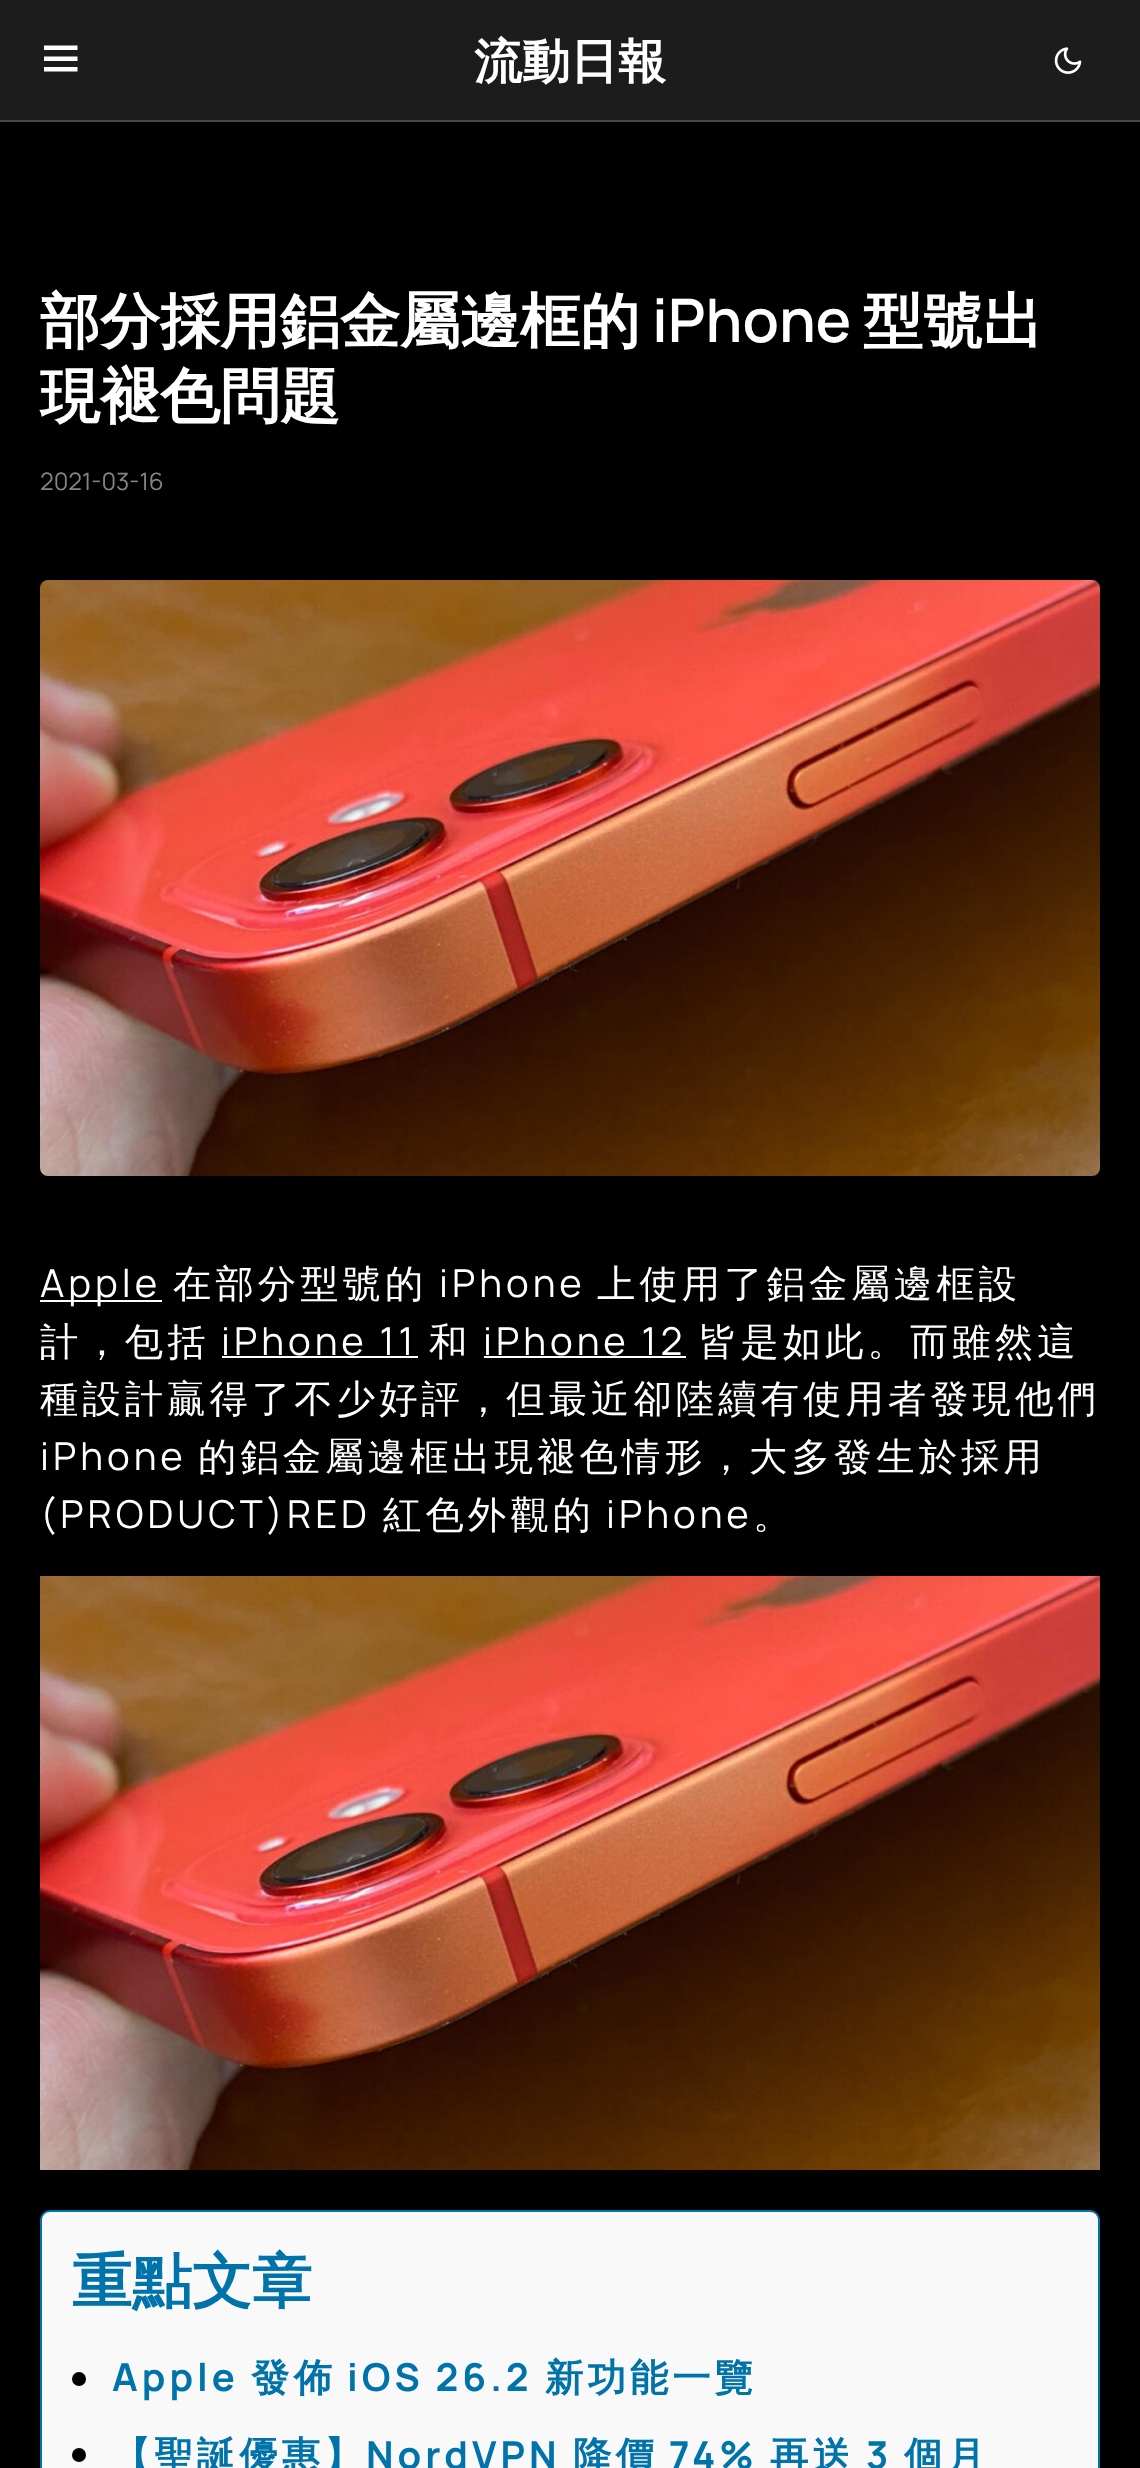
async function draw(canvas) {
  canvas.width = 1140
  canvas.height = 2468
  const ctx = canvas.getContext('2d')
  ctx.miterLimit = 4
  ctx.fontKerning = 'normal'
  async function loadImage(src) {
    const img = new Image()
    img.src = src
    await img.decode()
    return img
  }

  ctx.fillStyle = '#000'
  ctx.fillRect(0, 0, 1140, 2468)
  ctx.fillStyle = '#1c1c1c'
  ctx.fillRect(0, 0, 1140, 120)
  ctx.fillStyle = '#494949'
  ctx.fillRect(0, 120, 1140, 2)
  ctx.fillStyle = '#fff'
  ctx.beginPath()
  ctx.moveTo(44, 45.5)
  ctx.lineTo(77.5, 45.5)
  ctx.lineTo(77.5, 50)
  ctx.lineTo(44, 50)
  ctx.closePath()
  ctx.moveTo(44, 56.5)
  ctx.lineTo(77.5, 56.5)
  ctx.lineTo(77.5, 61)
  ctx.lineTo(44, 61)
  ctx.closePath()
  ctx.moveTo(44, 67)
  ctx.lineTo(77.5, 67)
  ctx.lineTo(77.5, 71.5)
  ctx.lineTo(44, 71.5)
  ctx.closePath()
  ctx.fill()
  ctx.font = 'bold 48px WenQuanYi Zen Hei'
  ctx.fillText('流動日報', 474, 78)
  ctx.drawImage(await loadImage('image0.png'), 1054, 47, 28, 27)
  ctx.font = 'bold 60px WenQuanYi Zen Hei'
  ctx.fillText('部分採用鋁金屬邊框的', 40, 342)
  ctx.font = '600 60px Manrope'
  ctx.fillText('iPhone', 652, 342)
  ctx.font = 'bold 60px WenQuanYi Zen Hei'
  ctx.fillText('型號出', 863, 342)
  ctx.fillText('現褪色問題', 40, 417)
  ctx.font = '24px Manrope'
  ctx.fillStyle = '#858585'
  ctx.fillText('2021-03-16', 40, 490)
  ctx.drawImage(await loadImage('image1.png'), 40, 580, 1060, 596)
  ctx.fillStyle = '#fff'
  ctx.fillRect(40, 1300, 122, 2)
  ctx.letterSpacing = '4px'
  ctx.font = '38.4px Manrope'
  ctx.fillText('Apple', 40, 1297)
  ctx.font = '500 38.4px WenQuanYi Zen Hei'
  ctx.fillText('在部分型號的', 173, 1297)
  ctx.font = '38.4px Manrope'
  ctx.fillText('iPhone', 439, 1297)
  ctx.font = '500 38.4px WenQuanYi Zen Hei'
  ctx.fillText('上使用了鋁金屬邊框設', 597, 1297)
  ctx.fillText('計，包括', 40, 1355)
  ctx.font = '38.4px Manrope'
  ctx.fillText('iPhone 11', 221, 1355)
  ctx.fillRect(222, 1356, 196, 2)
  ctx.font = '500 38.4px WenQuanYi Zen Hei'
  ctx.fillText('和', 429, 1355)
  ctx.font = '38.4px Manrope'
  ctx.fillText('iPhone 12', 483, 1355)
  ctx.fillRect(484, 1356, 202, 2)
  ctx.font = '500 38.4px WenQuanYi Zen Hei'
  ctx.fillText('皆是如此。而雖然這', 698, 1355)
  ctx.fillText('種設計贏得了不少好評，但最近卻陸續有使用者發現他們', 40, 1412)
  ctx.font = '38.4px Manrope'
  ctx.fillText('iPhone', 40, 1470)
  ctx.font = '500 38.4px WenQuanYi Zen Hei'
  ctx.fillText('的鋁金屬邊框出現褪色情形，大多發生於採用', 198, 1470)
  ctx.font = '38.4px Manrope'
  ctx.fillText('(PRODUCT)RED', 40, 1528)
  ctx.font = '500 38.4px WenQuanYi Zen Hei'
  ctx.fillText('紅色外觀的', 383, 1528)
  ctx.font = '38.4px Manrope'
  ctx.fillText('iPhone', 606, 1528)
  ctx.font = '500 38.4px WenQuanYi Zen Hei'
  ctx.fillText('。', 753, 1528)
  ctx.drawImage(await loadImage('image2.png'), 40, 1576, 1060, 594)
  ctx.fillStyle = '#f9f9f9'
  ctx.beginPath()
  ctx.roundRect(41, 2211, 1058, 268, 9)
  ctx.fill()
  ctx.strokeStyle = '#0073aa'
  ctx.lineWidth = 2
  ctx.stroke()
  ctx.letterSpacing = '0px'
  ctx.font = 'bold 60px WenQuanYi Zen Hei'
  ctx.fillStyle = '#0073aa'
  ctx.fillText('重點文章', 72, 2302)
  ctx.fillStyle = '#000'
  ctx.beginPath()
  ctx.arc(79, 2379, 7, 0, 2 * Math.PI)
  ctx.fill()
  ctx.letterSpacing = '4px'
  ctx.font = 'bold 38.4px Manrope'
  ctx.fillStyle = '#0073aa'
  ctx.fillText('Apple', 112, 2391)
  ctx.font = 'bold 38.4px WenQuanYi Zen Hei'
  ctx.fillText('發佈', 251, 2391)
  ctx.font = 'bold 38.4px Manrope'
  ctx.fillText('iOS 26.2', 347, 2391)
  ctx.font = 'bold 38.4px WenQuanYi Zen Hei'
  ctx.fillText('新功能一覽', 545, 2391)
  ctx.fillStyle = '#000'
  ctx.beginPath()
  ctx.arc(79, 2455, 7, 0, 2 * Math.PI)
  ctx.fill()
  ctx.fillStyle = '#0073aa'
  ctx.fillText('【聖誕優惠】', 112, 2469)
  ctx.font = 'bold 38.4px Manrope'
  ctx.fillText('NordVPN', 366, 2469)
  ctx.font = 'bold 38.4px WenQuanYi Zen Hei'
  ctx.fillText('降價', 573, 2469)
  ctx.font = 'bold 38.4px Manrope'
  ctx.fillText('74%', 669, 2469)
  ctx.font = 'bold 38.4px WenQuanYi Zen Hei'
  ctx.fillText('再送', 770, 2469)
  ctx.font = 'bold 38.4px Manrope'
  ctx.fillText('3', 866, 2469)
  ctx.font = 'bold 38.4px WenQuanYi Zen Hei'
  ctx.fillText('個月', 904, 2469)
}

draw(document.querySelector('canvas'))
